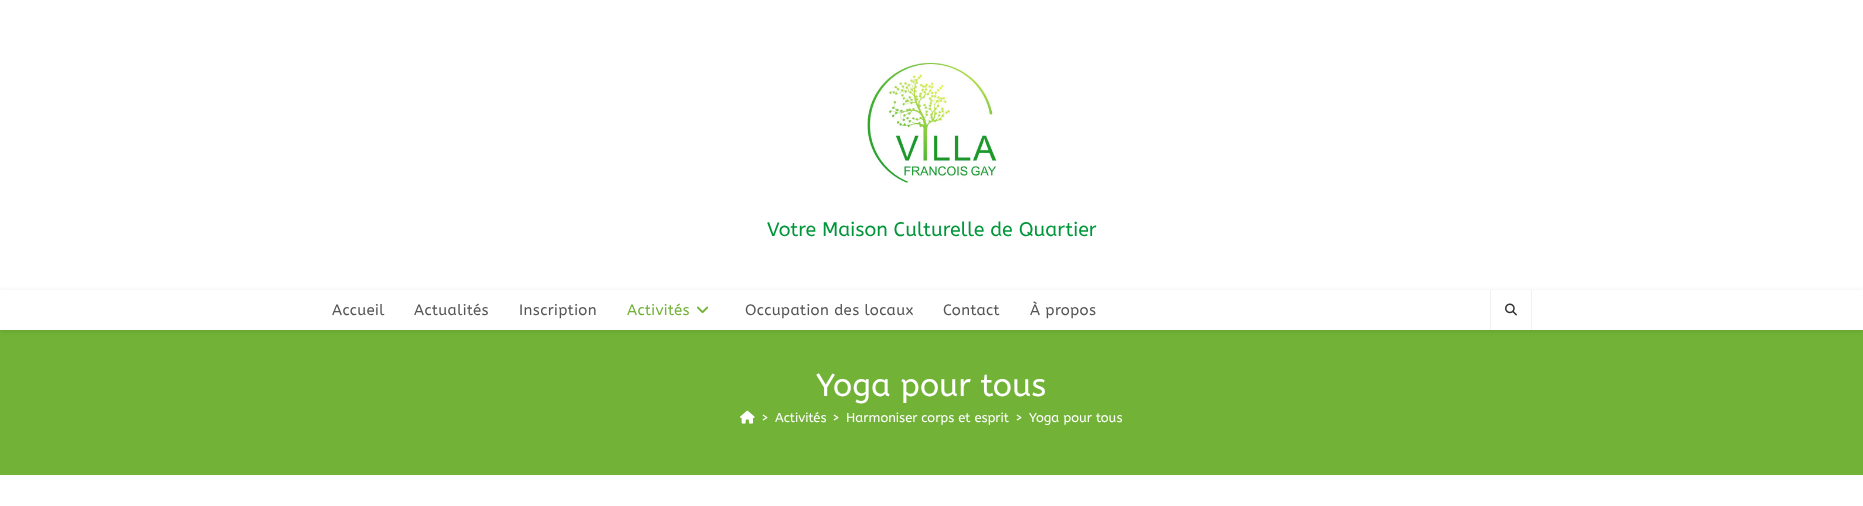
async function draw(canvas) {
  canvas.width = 1863
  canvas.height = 506
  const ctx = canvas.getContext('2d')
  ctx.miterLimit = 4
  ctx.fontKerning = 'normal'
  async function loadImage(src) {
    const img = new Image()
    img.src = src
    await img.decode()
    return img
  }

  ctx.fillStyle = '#fff'
  ctx.fillRect(0, 0, 1863, 506)
  ctx.drawImage(await loadImage('image0.png'), 867, 63, 130, 122)
  ctx.font = '19.6px ABeeZee'
  ctx.fillStyle = '#01963a'
  ctx.fillText('Votre Maison Culturelle de Quartier', 767, 236)
  ctx.fillStyle = '#72b237'
  ctx.fillRect(0, 330, 1863, 145)
  ctx.save()
  ctx.beginPath()
  ctx.moveTo(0, 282)
  ctx.lineTo(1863, 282)
  ctx.lineTo(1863, 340)
  ctx.lineTo(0, 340)
  ctx.closePath()
  ctx.moveTo(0, 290)
  ctx.lineTo(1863, 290)
  ctx.lineTo(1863, 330)
  ctx.lineTo(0, 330)
  ctx.closePath()
  ctx.clip('evenodd')
  ctx.fillStyle = '#0000001a'
  ctx.filter = 'blur(2.5px)'
  ctx.beginPath()
  ctx.rect(0, 291, 1863, 40)
  ctx.fill()
  ctx.filter = 'none'
  ctx.restore()
  ctx.letterSpacing = '0.4px'
  ctx.font = '15px ABeeZee'
  ctx.fillStyle = '#555'
  ctx.fillText('Accueil', 332, 315)
  ctx.fillText('Actualités', 414, 315)
  ctx.fillText('Inscription', 519, 315)
  ctx.fillStyle = '#72b237'
  ctx.fillText('Activités', 627, 315)
  ctx.drawImage(await loadImage('image1.png'), 697, 306, 12, 8)
  ctx.fillStyle = '#555'
  ctx.fillText('Occupation des locaux', 745, 315)
  ctx.fillText('Contact', 943, 315)
  ctx.fillText('À propos', 1030, 315)
  ctx.fillStyle = '#f1f1f1'
  ctx.fillRect(1531, 290, 1, 40)
  ctx.fillRect(1490, 290, 1, 40)
  ctx.drawImage(await loadImage('image2.png'), 1505, 303, 12, 13)
  ctx.letterSpacing = '0px'
  ctx.font = '32px ABeeZee'
  ctx.fillStyle = '#fff'
  ctx.fillText('Yoga pour tous', 816, 396)
  ctx.drawImage(await loadImage('image3.png'), 740, 410, 15, 14)
  ctx.font = '13px ABeeZee'
  ctx.fillText('>', 761, 422)
  ctx.fillText('Activités', 775, 422)
  ctx.fillText('>', 832, 422)
  ctx.fillText('Harmoniser corps et esprit', 846, 422)
  ctx.fillText('>', 1015, 422)
  ctx.fillText('Yoga pour tous', 1029, 422)
}

draw(document.querySelector('canvas'))
